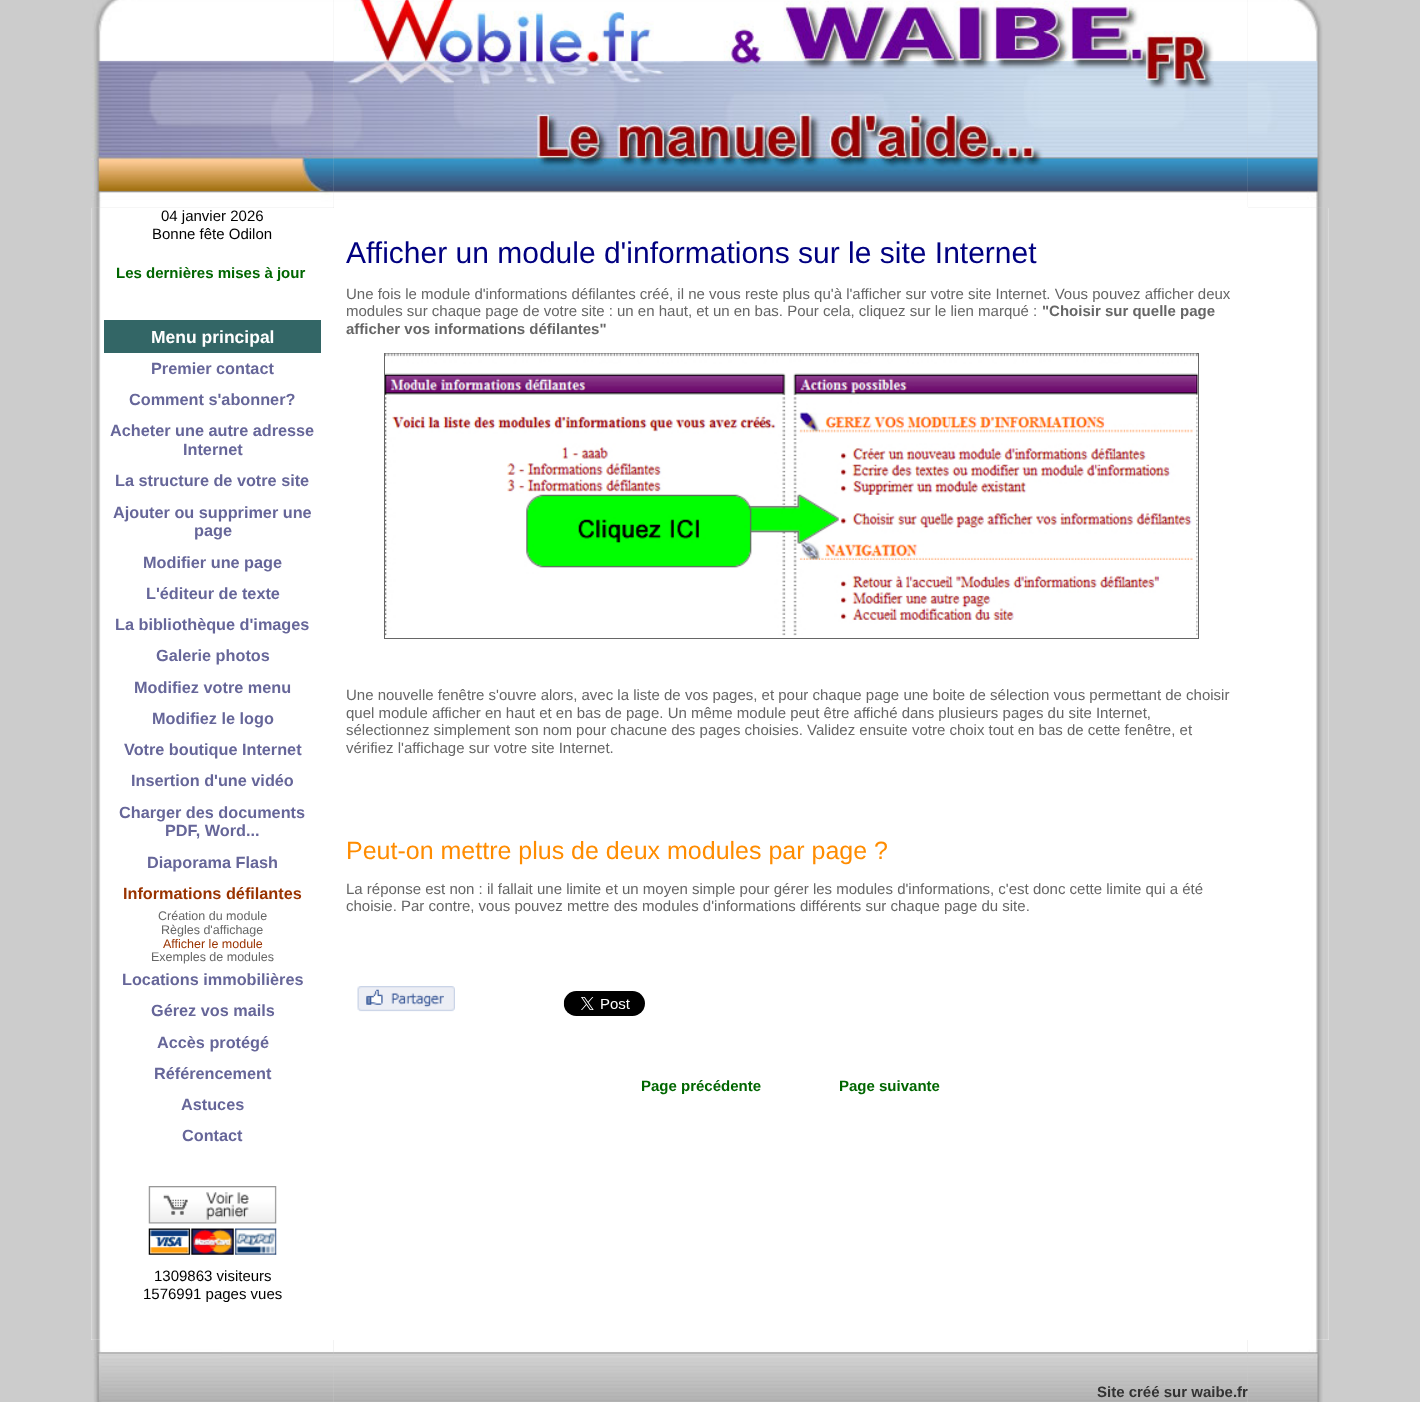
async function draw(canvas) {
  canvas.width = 1420
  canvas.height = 1402
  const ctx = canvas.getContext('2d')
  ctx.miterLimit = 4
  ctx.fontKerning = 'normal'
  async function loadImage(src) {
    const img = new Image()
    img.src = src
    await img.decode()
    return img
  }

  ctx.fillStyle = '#ccc'
  ctx.fillRect(0, 0, 1420, 1402)
  ctx.drawImage(await loadImage('image0.png'), 91, 0, 243, 208)
  ctx.drawImage(await loadImage('image1.png'), 333, 0, 915, 208)
  ctx.drawImage(await loadImage('image3.png'), 1247, 0, 76, 208)
  ctx.drawImage(await loadImage('image2.png'), 333, 0, 915, 207)
  ctx.fillStyle = '#fff'
  ctx.fillRect(91, 208, 243, 1132)
  ctx.drawImage(await loadImage('image4.png'), 91, 207, 243, 1133)
  ctx.font = '15px Liberation Sans'
  ctx.fillStyle = '#000'
  ctx.fillText('04 janvier 2026', 161, 221)
  ctx.fillText('Bonne fête Odilon', 152, 239)
  ctx.font = 'bold 15px Liberation Sans'
  ctx.fillStyle = '#060'
  ctx.fillText('Les dernières mises à jour', 116, 278)
  ctx.fillStyle = '#366'
  ctx.fillRect(104, 320, 217, 33)
  ctx.font = 'bold 17.5px Liberation Sans'
  ctx.fillStyle = '#fff'
  ctx.fillText('Menu principal', 151, 343)
  ctx.font = 'bold 16.25px Liberation Sans'
  ctx.fillStyle = '#669'
  ctx.fillText('Premier contact', 151, 374)
  ctx.fillText('Comment s\'abonner?', 129, 405)
  ctx.fillText('Acheter une autre adresse', 110, 436)
  ctx.fillText('Internet', 183, 455)
  ctx.fillText('La structure de votre site', 115, 486)
  ctx.fillText('Ajouter ou supprimer une', 113, 518)
  ctx.fillText('page', 194, 536)
  ctx.fillText('Modifier une page', 143, 568)
  ctx.fillText('L\'éditeur de texte', 146, 599)
  ctx.fillText('La bibliothèque d\'images', 115, 630)
  ctx.fillText('Galerie photos', 156, 661)
  ctx.fillText('Modifiez votre menu', 134, 693)
  ctx.fillText('Modifiez le logo', 152, 724)
  ctx.fillText('Votre boutique Internet', 124, 755)
  ctx.fillText('Insertion d\'une vidéo', 131, 786)
  ctx.fillText('Charger des documents', 119, 818)
  ctx.fillText('PDF, Word...', 165, 836)
  ctx.fillText('Diaporama Flash', 147, 868)
  ctx.fillStyle = '#930'
  ctx.fillText('Informations défilantes', 123, 899)
  ctx.font = '12.5px Liberation Sans'
  ctx.fillStyle = '#666'
  ctx.fillText('Création du module', 158, 920)
  ctx.fillText('Règles d\'affichage', 161, 934)
  ctx.fillStyle = '#930'
  ctx.fillText('Afficher le module', 163, 948)
  ctx.fillStyle = '#666'
  ctx.fillText('Exemples de modules', 151, 961)
  ctx.font = 'bold 16.25px Liberation Sans'
  ctx.fillStyle = '#669'
  ctx.fillText('Locations immobilières', 122, 985)
  ctx.fillText('Gérez vos mails', 151, 1016)
  ctx.fillText('Accès protégé', 157, 1048)
  ctx.fillText('Référencement', 154, 1079)
  ctx.fillText('Astuces', 181, 1110)
  ctx.fillText('Contact', 182, 1141)
  ctx.drawImage(await loadImage('image5.png'), 148, 1186, 129, 38)
  ctx.drawImage(await loadImage('image6.png'), 148, 1228, 129, 27)
  ctx.font = '15px Liberation Sans'
  ctx.fillStyle = '#000'
  ctx.fillText('1309863 visiteurs', 154, 1281)
  ctx.fillText('1576991 pages vues', 143, 1299)
  ctx.fillStyle = '#fff'
  ctx.fillRect(334, 207, 914, 1133)
  ctx.font = '30px Liberation Sans'
  ctx.fillStyle = '#000080'
  ctx.fillText('Afficher un module d\'informations sur le site Internet', 346, 263)
  ctx.font = '15px Liberation Sans'
  ctx.fillStyle = '#666'
  ctx.fillText('Une fois le module d\'informations défilantes créé, il ne vous reste plus qu\'à l\'afficher sur votre site Internet. Vous pouvez afficher deux', 346, 299)
  ctx.fillText('modules sur chaque page de votre site : un en haut, et un en bas. Pour cela, cliquez sur le lien marqué :', 346, 316)
  ctx.font = 'bold 15px Liberation Sans'
  ctx.fillText('"Choisir sur quelle page', 1042, 316)
  ctx.fillText('afficher vos informations défilantes"', 346, 334)
  ctx.strokeStyle = '#666'
  ctx.strokeRect(384.5, 353.5, 814, 285)
  ctx.drawImage(await loadImage('image7.png'), 385, 353, 813, 283)
  ctx.font = '15px Liberation Sans'
  ctx.fillText('Une nouvelle fenêtre s\'ouvre alors, avec la liste de vos pages, et pour chaque page une boite de sélection vous permettant de choisir', 346, 700)
  ctx.fillText('quel module afficher en haut et en bas de page. Un même module peut être affiché dans plusieurs pages du site Internet,', 346, 718)
  ctx.fillText('sélectionnez simplement son nom pour chacune des pages choisies. Validez ensuite votre choix tout en bas de cette fenêtre, et', 346, 735)
  ctx.fillText('vérifiez l\'affichage sur votre site Internet.', 346, 753)
  ctx.font = '25px Liberation Sans'
  ctx.fillStyle = '#ff8c00'
  ctx.fillText('Peut-on mettre plus de deux modules par page ?', 346, 859)
  ctx.font = '15px Liberation Sans'
  ctx.fillStyle = '#666'
  ctx.fillText('La réponse est non : il fallait une limite et un moyen simple pour gérer les modules d\'informations, c\'est donc cette limite qui a été', 346, 894)
  ctx.fillText('choisie. Par contre, vous pouvez mettre des modules d\'informations différents sur chaque page du site.', 346, 911)
  ctx.drawImage(await loadImage('image8.png'), 357, 986, 98, 26)
  ctx.drawImage(await loadImage('image9.png'), 563, 991, 82, 25)
  ctx.font = 'bold 15px Liberation Sans'
  ctx.fillStyle = '#060'
  ctx.fillText('Page précédente', 641, 1091)
  ctx.fillText('Page suivante', 839, 1091)
  ctx.fillStyle = '#fff'
  ctx.fillRect(1248, 208, 81, 1132)
  ctx.drawImage(await loadImage('image10.png'), 1248, 207, 81, 1133)
  ctx.drawImage(await loadImage('image11.png'), 93, 1339, 241, 63)
  ctx.drawImage(await loadImage('image12.png'), 334, 1340, 914, 62)
  ctx.drawImage(await loadImage('image13.png'), 1247, 1339, 76, 63)
  ctx.fillStyle = '#333'
  ctx.fillText('Site créé sur waibe.fr', 1097, 1397)
}

draw(document.querySelector('canvas'))
